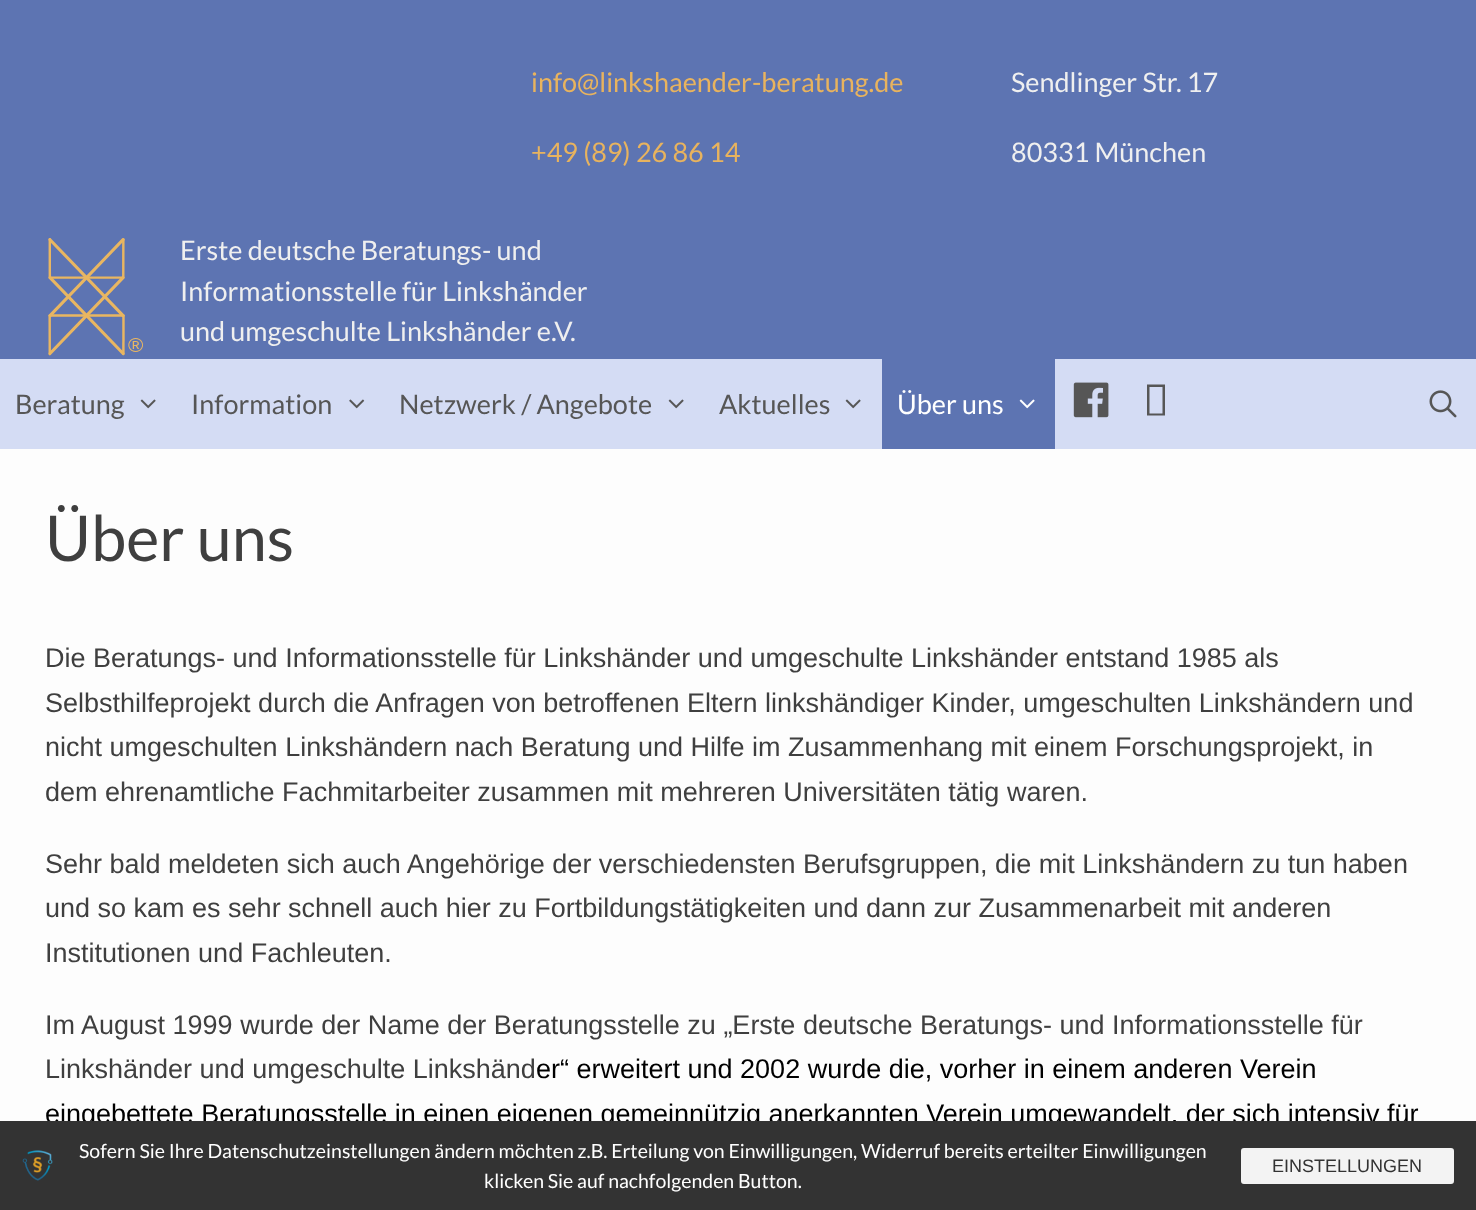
async function draw(canvas) {
  canvas.width = 1476
  canvas.height = 1210
  const ctx = canvas.getContext('2d')
  ctx.miterLimit = 4
  ctx.fontKerning = 'normal'
  async function loadImage(src) {
    const img = new Image()
    img.src = src
    await img.decode()
    return img
  }

  ctx.fillStyle = '#d4dcf4'
  ctx.fillRect(0, 0, 1476, 1210)
  ctx.fillStyle = '#5d74b2'
  ctx.fillRect(0, 0, 1476, 359)
  ctx.font = '27px Lato'
  ctx.fillStyle = '#e8b35e'
  ctx.fillText('info@linkshaender-beratung.de', 531, 92)
  ctx.fillText('+49 (89) 26 86 14', 531, 162)
  ctx.fillStyle = '#efefef'
  ctx.fillText('Sendlinger Str. 17', 1011, 92)
  ctx.fillText('80331 München', 1011, 162)
  ctx.drawImage(await loadImage('image0.png'), 48, 238, 95, 118)
  ctx.fillText('Erste deutsche Beratungs- und', 180, 260)
  ctx.fillText('Informationsstelle für Linkshänder', 180, 301)
  ctx.fillText('und umgeschulte Linkshänder e.V.', 180, 341)
  ctx.fillStyle = '#565656'
  ctx.fillText('Beratung', 15, 414)
  ctx.drawImage(await loadImage('image1.png'), 140, 399, 16, 10)
  ctx.fillText('Information', 191, 414)
  ctx.drawImage(await loadImage('image2.png'), 349, 399, 16, 10)
  ctx.fillText('Netzwerk / Angebote', 399, 414)
  ctx.drawImage(await loadImage('image1.png'), 668, 399, 16, 10)
  ctx.fillText('Aktuelles', 719, 414)
  ctx.drawImage(await loadImage('image1.png'), 845, 399, 16, 10)
  ctx.fillStyle = '#5d74b2'
  ctx.fillRect(882, 359, 173, 90)
  ctx.fillStyle = '#fff'
  ctx.fillText('Über uns', 897, 414)
  ctx.drawImage(await loadImage('image3.png'), 1019, 399, 16, 10)
  ctx.drawImage(await loadImage('image4.png'), 1073, 382, 36, 36)
  ctx.fillStyle = '#565656'
  ctx.beginPath()
  ctx.moveTo(1147, 415.5)
  ctx.lineTo(1147, 384.5)
  ctx.lineTo(1165, 384.5)
  ctx.lineTo(1165, 415.5)
  ctx.closePath()
  ctx.moveTo(1149.5, 413.5)
  ctx.lineTo(1162.5, 413.5)
  ctx.lineTo(1162.5, 387)
  ctx.lineTo(1149.5, 387)
  ctx.closePath()
  ctx.fill()
  ctx.drawImage(await loadImage('image5.png'), 1429, 390, 28, 28)
  ctx.fillStyle = '#fdfdfd'
  ctx.fillRect(0, 449, 1476, 672)
  ctx.font = '63px Lato'
  ctx.fillStyle = '#3f3f3f'
  ctx.fillText('Über uns', 45, 561)
  ctx.font = '27px Liberation Sans'
  ctx.fillText('Die Beratungs- und Informationsstelle für Linkshänder und umgeschulte Linkshänder entstand 1985 als', 45, 667)
  ctx.fillText('Selbsthilfeprojekt durch die Anfragen von betroffenen Eltern linkshändiger Kinder, umgeschulten Linkshändern und', 45, 712)
  ctx.fillText('nicht umgeschulten Linkshändern nach Beratung und Hilfe im Zusammenhang mit einem Forschungsprojekt, in', 45, 756)
  ctx.fillText('dem ehrenamtliche Fachmitarbeiter zusammen mit mehreren Universitäten tätig waren.', 45, 801)
  ctx.fillText('Sehr bald meldeten sich auch Angehörige der verschiedensten Berufsgruppen, die mit Linkshändern zu tun haben', 45, 873)
  ctx.fillText('und so kam es sehr schnell auch hier zu Fortbildungstätigkeiten und dann zur Zusammenarbeit mit anderen', 45, 917)
  ctx.fillText('Institutionen und Fachleuten.', 45, 962)
  ctx.fillText('Im August 1999 wurde der Name der Beratungsstelle zu „Erste deutsche Beratungs- und Informationsstelle für', 45, 1034)
  ctx.fillText('Linkshänder und umgeschulte Linkshänd', 45, 1078)
  ctx.fillStyle = '#000'
  ctx.fillText('er“ erweitert und 2002 wurde die, vorher in einem anderen Verein', 536, 1078)
  ctx.fillText('eingebettete Beratungsstelle in einen eigenen gemeinnützig anerkannten Verein umgewandelt, der sich intensiv für', 45, 1123)
  ctx.fillStyle = '#333'
  ctx.fillRect(0, 1121, 1476, 89)
  ctx.drawImage(await loadImage('image6.png'), 22, 1150, 31, 31)
  ctx.font = '19.5px Lato'
  ctx.fillStyle = '#fff'
  ctx.fillText('Sofern Sie Ihre Datenschutzeinstellungen ändern möchten z.B. Erteilung von Einwilligungen, Widerruf bereits erteilter Einwilligungen', 79, 1158)
  ctx.fillText('klicken Sie auf nachfolgenden Button.', 484, 1188)
  ctx.fillStyle = '#f3f3f3'
  ctx.beginPath()
  ctx.roundRect(1242, 1149, 211, 34, 2)
  ctx.fill()
  ctx.strokeStyle = '#f3f3f3'
  ctx.lineWidth = 2
  ctx.stroke()
  ctx.font = '18px Liberation Sans'
  ctx.fillStyle = '#333'
  ctx.fillText('EINSTELLUNGEN', 1272, 1172)
}

draw(document.querySelector('canvas'))
